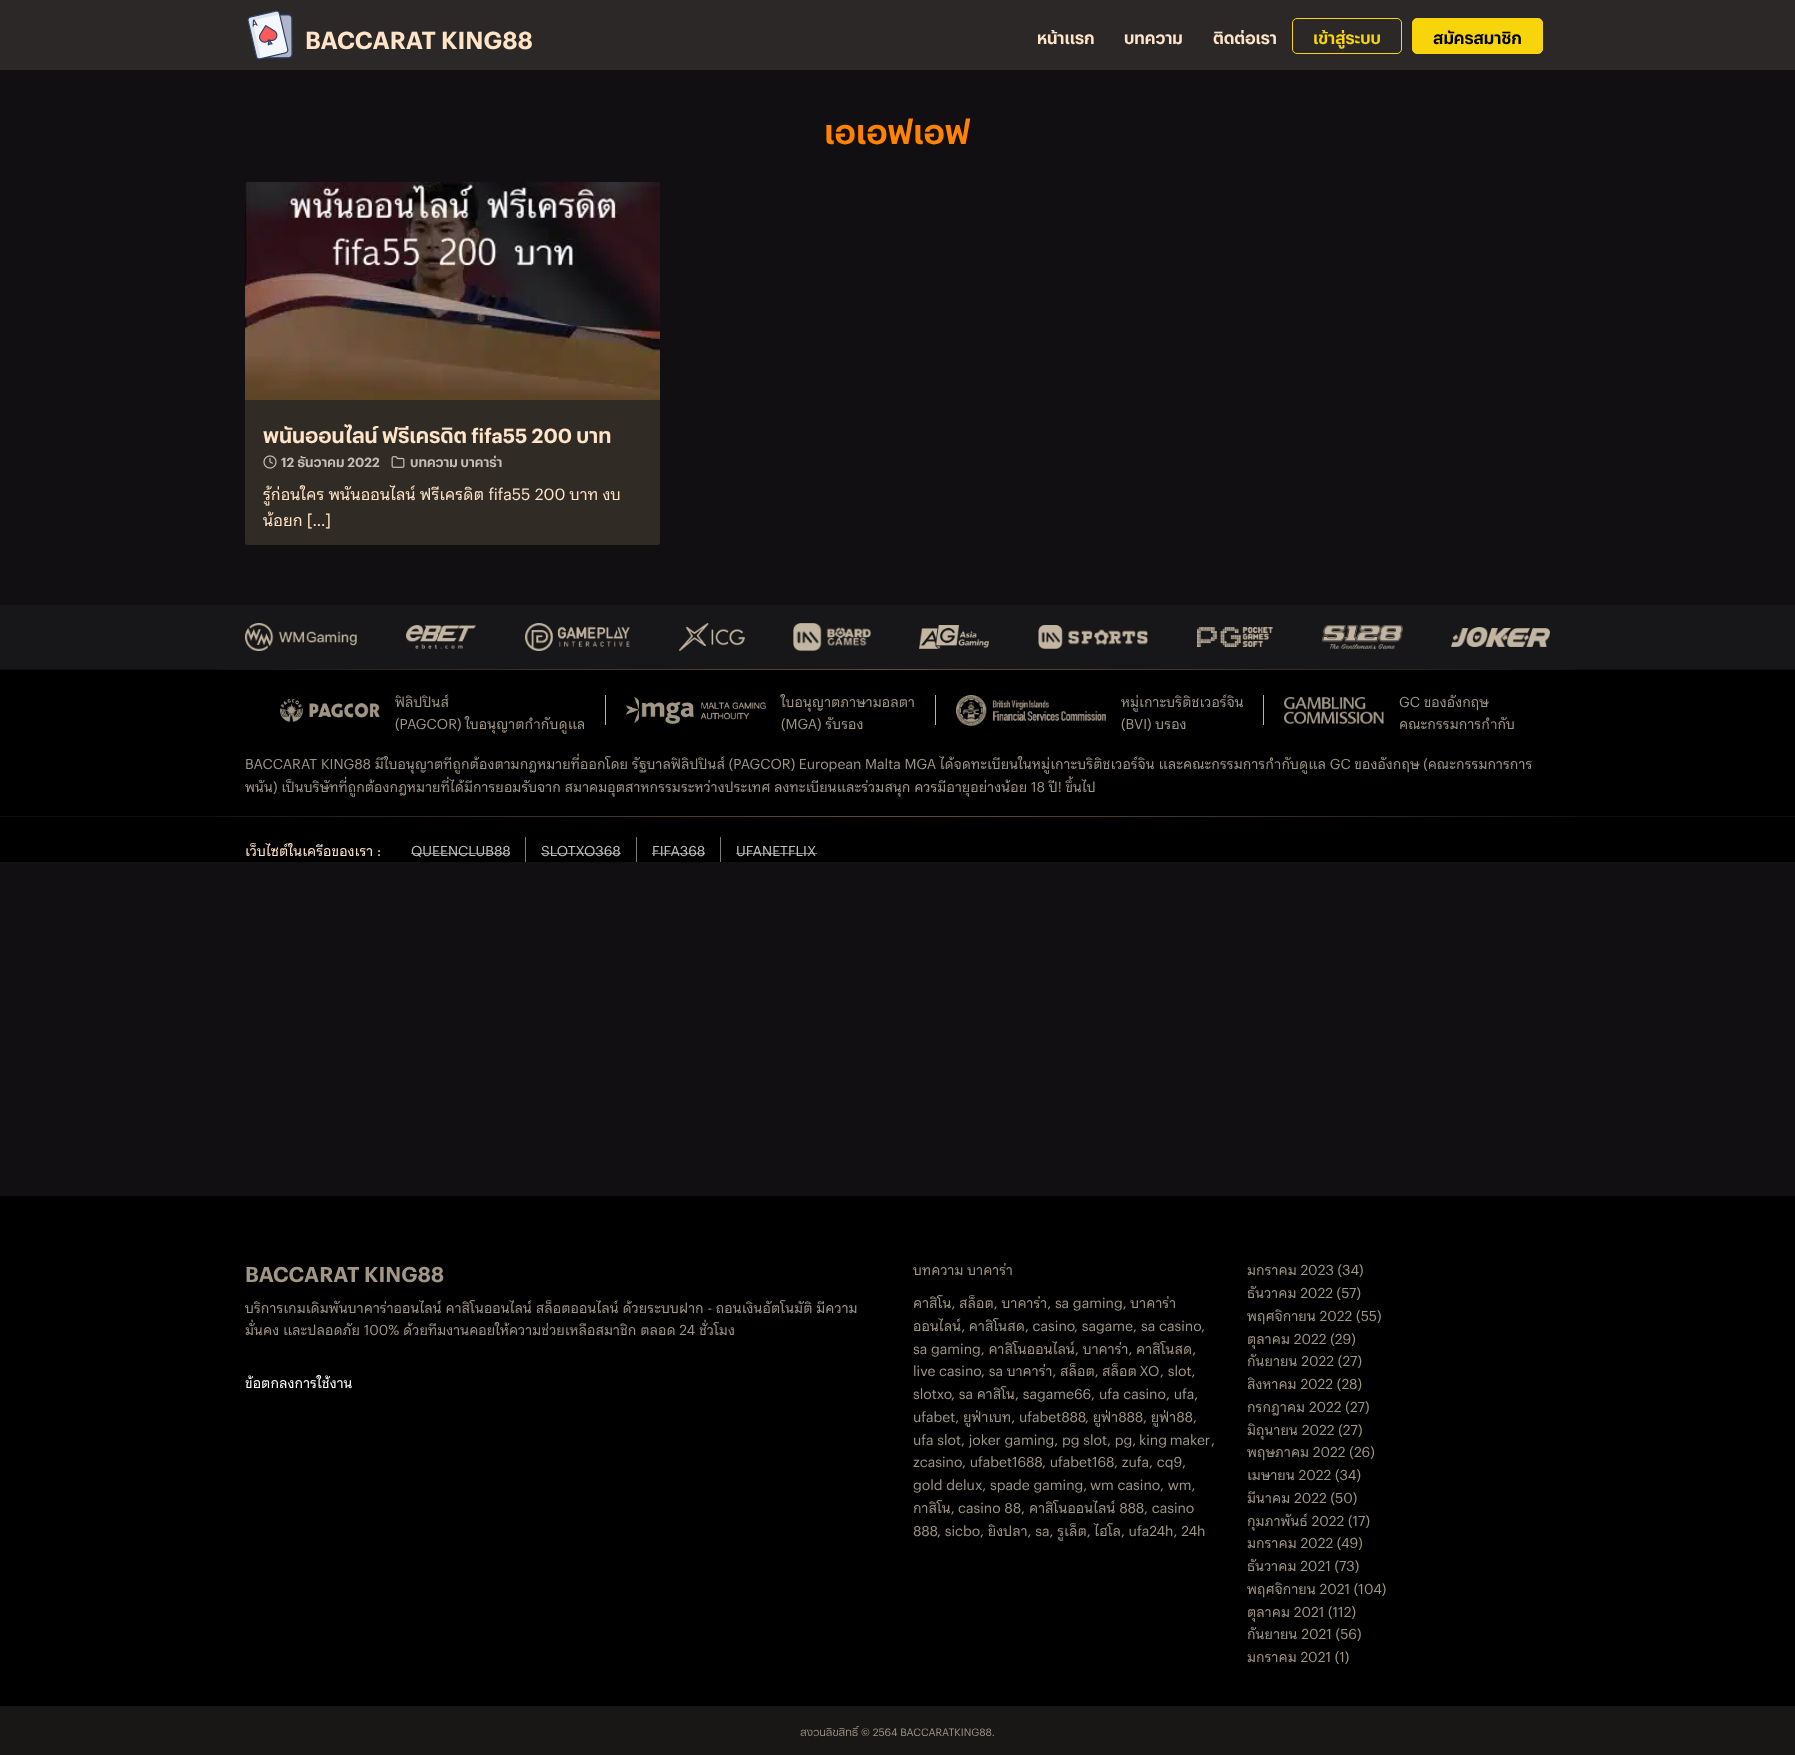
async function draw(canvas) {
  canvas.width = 1795
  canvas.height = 1755
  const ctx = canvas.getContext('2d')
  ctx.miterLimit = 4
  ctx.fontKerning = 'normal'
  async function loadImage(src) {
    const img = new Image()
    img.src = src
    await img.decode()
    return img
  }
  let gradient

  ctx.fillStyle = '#120f12'
  ctx.fillRect(0, 0, 1795, 1755)
  ctx.fillStyle = '#2b2827'
  ctx.fillRect(0, 0, 1795, 70)
  ctx.drawImage(await loadImage('image0.png'), 247, 10, 46, 50)
  ctx.font = '600 24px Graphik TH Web'
  ctx.fillStyle = '#ffe4c8'
  ctx.fillText('BACCARAT KING88', 305, 49)
  ctx.font = '600 16px Graphik TH Web'
  ctx.fillText('หน้าแรก', 1037, 44)
  ctx.fillText('บทความ', 1124, 44)
  ctx.fillText('ติดต่อเรา', 1213, 44)
  ctx.beginPath()
  ctx.roundRect(1292.5, 18.5, 109, 35, 4.5)
  ctx.strokeStyle = '#f8d40a'
  ctx.stroke()
  ctx.fillStyle = '#f8d40a'
  ctx.fillText('เข้าสู่ระบบ', 1313, 44)
  ctx.beginPath()
  ctx.roundRect(1412.5, 18.5, 130, 35, 4.5)
  ctx.fill()
  ctx.stroke()
  ctx.fillStyle = '#000'
  ctx.fillText('สมัครสมาชิก', 1433, 44)
  ctx.font = '600 32px Graphik TH Web'
  ctx.fillStyle = '#ff8300'
  ctx.fillText('เอเอฟเอฟ', 824, 144)
  ctx.fillStyle = '#312b25'
  ctx.beginPath()
  ctx.roundRect(245, 182, 415, 363, 3)
  ctx.fill()
  ctx.drawImage(await loadImage('image1.png'), 245, 182, 415, 218)
  ctx.font = '600 20px Graphik TH Web'
  ctx.fillStyle = '#ffe4c8'
  ctx.fillText('พนันออนไลน์ ฟรีเครดิต fifa55 200 บาท', 263, 443)
  ctx.drawImage(await loadImage('image2.png'), 263, 455, 14, 14)
  ctx.font = '600 13px Graphik TH Web'
  ctx.fillStyle = '#c4bdb7'
  ctx.fillText('12 ธันวาคม 2022', 281, 467)
  ctx.drawImage(await loadImage('image3.png'), 391, 456, 14, 12)
  ctx.fillText('บทความ บาคาร่า', 410, 467)
  ctx.font = '16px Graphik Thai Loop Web'
  ctx.fillStyle = '#ffe4c8'
  ctx.fillText('รู้ก่อนใคร พนันออนไลน์ ฟรีเครดิต fifa55 200 บาท งบ', 263, 500)
  ctx.fillText('น้อยก […]', 263, 526)
  ctx.fillStyle = '#171618'
  ctx.fillRect(0, 605, 1795, 64)
  ctx.drawImage(await loadImage('image4.png'), 245, 623, 112, 28)
  ctx.drawImage(await loadImage('image5.png'), 406, 625, 70, 24)
  ctx.drawImage(await loadImage('image6.png'), 525, 623, 105, 28)
  ctx.drawImage(await loadImage('image7.png'), 679, 623, 66, 28)
  ctx.drawImage(await loadImage('image8.png'), 793, 623, 78, 28)
  ctx.drawImage(await loadImage('image9.png'), 919, 625, 70, 24)
  ctx.drawImage(await loadImage('image10.png'), 1038, 625, 110, 24)
  ctx.drawImage(await loadImage('image11.png'), 1197, 627, 76, 20)
  ctx.drawImage(await loadImage('image12.png'), 1322, 625, 81, 24)
  ctx.drawImage(await loadImage('image13.png'), 1451, 627, 99, 20)
  gradient = ctx.createLinearGradient(1598, 669, 198, 670)
  gradient.addColorStop(0, '#120f12')
  gradient.addColorStop(0.2, '#322925')
  gradient.addColorStop(0.5, '#5e4b39')
  gradient.addColorStop(0.84, '#302724')
  gradient.addColorStop(1, '#120f12')
  ctx.fillStyle = gradient
  ctx.fillRect(217, 669, 1359, 1)
  ctx.fillStyle = '#000'
  ctx.fillRect(0, 670, 1795, 146)
  ctx.drawImage(await loadImage('image14.png'), 280, 699, 100, 23)
  ctx.font = '14px Graphik Thai Loop Web'
  ctx.fillStyle = '#a19685'
  ctx.fillText('ฟิลิปปินส์', 395, 707)
  ctx.fillText('(PAGCOR) ใบอนุญาตกำกับดูแล', 395, 729)
  ctx.fillStyle = '#c2b299'
  ctx.fillRect(605, 695, 1, 30)
  ctx.drawImage(await loadImage('image15.png'), 626, 697, 140, 27)
  ctx.fillStyle = '#a19685'
  ctx.fillText('ใบอนุญาตภาษามอลตา', 781, 707)
  ctx.fillText('(MGA) รับรอง', 781, 729)
  ctx.fillStyle = '#c2b299'
  ctx.fillRect(935, 695, 1, 30)
  ctx.drawImage(await loadImage('image16.png'), 956, 695, 150, 31)
  ctx.fillStyle = '#a19685'
  ctx.fillText('หมู่เกาะบริติชเวอร์จิน', 1121, 707)
  ctx.fillText('(BVI) บรอง', 1121, 729)
  ctx.fillStyle = '#c2b299'
  ctx.fillRect(1263, 695, 1, 30)
  ctx.drawImage(await loadImage('image17.png'), 1284, 697, 100, 27)
  ctx.fillStyle = '#a19685'
  ctx.fillText('GC ของอังกฤษ', 1399, 707)
  ctx.fillText('คณะกรรมการกำกับ', 1399, 729)
  ctx.fillText('BACCARAT KING88 มีใบอนุญาตทีถูกต้องตามกฎหมายที่ออกโดย รัฐบาลฟิลิปปินส์ (PAGCOR) European Malta MGA ได้จดทะเบียนในหมู่เกาะบริติชเวอร์จิน และคณะกรรมการกำกับดูแล GC ของอังกฤษ (คณะกรรมการการ', 245, 769)
  ctx.fillText('พนัน) เป็นบริษัทที่ถูกต้องกฎหมายที่ได้มีการยอมรับจาก สมาคมอุตสาหกรรมระหว่างประเทศ ลงทะเบียนและร่วมสนุก ควรมีอายุอย่างน้อย 18 ปี! ขึ้นไป', 245, 792)
  gradient = ctx.createLinearGradient(1598, 816, 198, 817)
  gradient.addColorStop(0, '#120f12')
  gradient.addColorStop(0.2, '#322925')
  gradient.addColorStop(0.5, '#5e4b39')
  gradient.addColorStop(0.84, '#302724')
  gradient.addColorStop(1, '#120f12')
  ctx.fillStyle = gradient
  ctx.fillRect(217, 816, 1359, 1)
  ctx.fillStyle = '#000'
  ctx.fillRect(0, 817, 1795, 45)
  ctx.fillStyle = '#ffe4c8'
  ctx.fillText('เว็บไซต์ในเครีอของเรา :', 245, 856)
  ctx.fillStyle = '#7c7c7c'
  ctx.fillRect(525, 837, 1, 25)
  ctx.fillRect(411, 853, 99, 1)
  ctx.fillStyle = '#c0c0c0'
  ctx.fillText('QUEENCLUB88', 411, 856)
  ctx.fillStyle = '#7c7c7c'
  ctx.fillRect(636, 837, 1, 25)
  ctx.fillRect(541, 853, 80, 1)
  ctx.fillStyle = '#c0c0c0'
  ctx.fillText('SLOTXO368', 541, 856)
  ctx.fillStyle = '#7c7c7c'
  ctx.fillRect(720, 837, 1, 25)
  ctx.fillRect(652, 853, 53, 1)
  ctx.fillStyle = '#c0c0c0'
  ctx.fillText('FIFA368', 652, 856)
  ctx.fillStyle = '#7c7c7c'
  ctx.fillRect(736, 853, 81, 1)
  ctx.fillStyle = '#c0c0c0'
  ctx.fillText('UFANETFLIX', 736, 856)
  ctx.fillStyle = '#000'
  ctx.fillRect(0, 1196, 1795, 510)
  ctx.font = '600 21px Graphik TH Web'
  ctx.fillStyle = '#a19685'
  ctx.fillText('BACCARAT KING88', 245, 1282)
  ctx.font = '14px Graphik Thai Loop Web'
  ctx.fillText('บริการเกมเดิมพันบาคาร่าออนไลน์ คาสิโนออนไลน์ สล็อตออนไลน์ ด้วยระบบฝาก - ถอนเงินอัตโนมัติ มีความ', 245, 1313)
  ctx.fillText('มั่นคง และปลอดภัย 100% ด้วยทีมงานคอยให้ความช่วยเหลือสมาชิก ตลอด 24 ชั่วโมง', 245, 1335)
  ctx.fillStyle = '#fff'
  ctx.fillText('ข้อตกลงการใช้งาน', 245, 1388)
  ctx.fillStyle = '#a19685'
  ctx.fillText('บทความ บาคาร่า', 913, 1275)
  ctx.fillText('คาสิโน, สล็อต, บาคาร่า, sa gaming, บาคาร่า', 913, 1308)
  ctx.fillText('ออนไลน์, คาสิโนสด, casino', 913, 1331)
  ctx.fillText(', sagame,', 1074, 1331)
  ctx.fillText('sa casino', 1141, 1331)
  ctx.fillText(',', 1201, 1331)
  ctx.fillText('sa gaming, คาสิโนออนไลน์, บาคาร่า, คาสิโนสด,', 913, 1354)
  ctx.fillText('live casino', 913, 1376)
  ctx.fillText(', sa บาคาร่า, สล็อต,', 981, 1376)
  ctx.wordSpacing = '-1px'
  ctx.fillText('สล็อต XO', 1102, 1376)
  ctx.wordSpacing = '0px'
  ctx.fillText(', slot,', 1160, 1376)
  ctx.fillText('slotxo', 913, 1399)
  ctx.fillText(', sa คาสิโน, sagame66', 951, 1399)
  ctx.fillText(',', 1091, 1399)
  ctx.fillText('ufa casino', 1099, 1399)
  ctx.fillText(', ufa,', 1166, 1399)
  ctx.fillText('ufabet, ยูฟ่าเบท, ufabet888', 913, 1422)
  ctx.fillText(', ยูฟ่า888', 1085, 1422)
  ctx.fillText(', ยูฟ่า88', 1143, 1422)
  ctx.fillText(',', 1193, 1422)
  ctx.fillText('ufa slot, joker gaming, pg slot, pg,', 913, 1445)
  ctx.wordSpacing = '-1px'
  ctx.fillText('king maker', 1139, 1445)
  ctx.wordSpacing = '0px'
  ctx.fillText(',', 1211, 1445)
  ctx.fillText('zcasino', 913, 1467)
  ctx.fillText(', ufabet1688', 962, 1467)
  ctx.fillText(', ufabet168', 1042, 1467)
  ctx.fillText(', zufa, cq9', 1114, 1467)
  ctx.fillText(',', 1182, 1467)
  ctx.fillText('gold delux, spade gaming,', 913, 1490)
  ctx.fillText('wm casino', 1090, 1490)
  ctx.fillText(', wm,', 1160, 1490)
  ctx.fillText('กาสิโน,', 913, 1513)
  ctx.fillText('casino 88', 958, 1513)
  ctx.fillText(',', 1021, 1513)
  ctx.fillText('คาสิโนออนไลน์ 888', 1029, 1513)
  ctx.fillText(', casino', 1144, 1513)
  ctx.fillText('888', 913, 1536)
  ctx.fillText(', sicbo', 937, 1536)
  ctx.fillText(', ยิงปลา, sa, รูเล็ต, ไฮโล, ufa24h, 24h', 980, 1536)
  ctx.fillText('มกราคม 2023 (34)', 1247, 1275)
  ctx.fillText('ธันวาคม 2022 (57)', 1247, 1298)
  ctx.fillText('พฤศจิกายน 2022 (55)', 1247, 1321)
  ctx.fillText('ตุลาคม 2022 (29)', 1247, 1344)
  ctx.fillText('กันยายน 2022 (27)', 1247, 1366)
  ctx.fillText('สิงหาคม 2022 (28)', 1247, 1389)
  ctx.fillText('กรกฎาคม 2022 (27)', 1247, 1412)
  ctx.fillText('มิถุนายน 2022 (27)', 1247, 1435)
  ctx.fillText('พฤษภาคม 2022 (26)', 1247, 1457)
  ctx.fillText('เมษายน 2022 (34)', 1247, 1480)
  ctx.fillText('มีนาคม 2022 (50)', 1247, 1503)
  ctx.fillText('กุมภาพันธ์ 2022 (17)', 1247, 1526)
  ctx.fillText('มกราคม 2022 (49)', 1247, 1548)
  ctx.fillText('ธันวาคม 2021 (73)', 1247, 1571)
  ctx.fillText('พฤศจิกายน 2021 (104)', 1247, 1594)
  ctx.fillText('ตุลาคม 2021 (112)', 1247, 1617)
  ctx.fillText('กันยายน 2021 (56)', 1247, 1639)
  ctx.fillText('มกราคม 2021 (1)', 1247, 1662)
  ctx.fillStyle = '#181716'
  ctx.fillRect(0, 1706, 1795, 49)
  ctx.font = '10.5px Graphik TH Web'
  ctx.fillStyle = '#a19685'
  ctx.fillText('สงวนลิขสิทธิ์ © 2564 BACCARATKING88.', 800, 1736)
}

draw(document.querySelector('canvas'))
